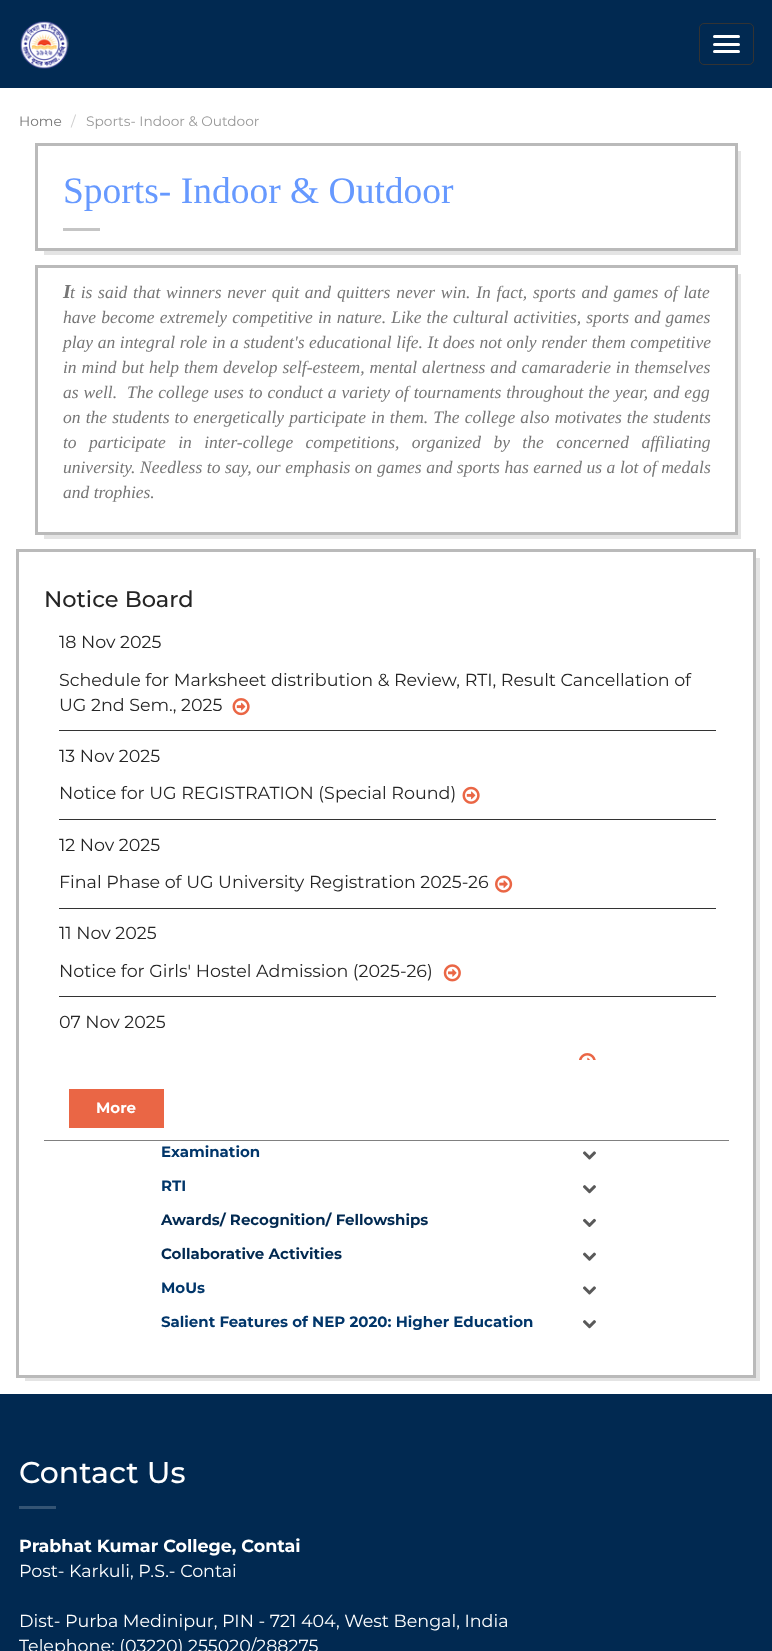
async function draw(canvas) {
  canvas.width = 772
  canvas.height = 1651
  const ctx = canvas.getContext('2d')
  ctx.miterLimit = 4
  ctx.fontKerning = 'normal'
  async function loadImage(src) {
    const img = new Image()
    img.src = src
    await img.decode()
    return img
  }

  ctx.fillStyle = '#fff'
  ctx.fillRect(0, 0, 772, 1651)
  ctx.fillStyle = '#012951'
  ctx.fillRect(0, 0, 772, 88)
  ctx.drawImage(await loadImage('image0.png'), 20, 21, 49, 48)
  ctx.beginPath()
  ctx.roundRect(699.5, 23.5, 54, 41, 4.5)
  ctx.strokeStyle = '#333'
  ctx.stroke()
  ctx.fillStyle = '#fff'
  ctx.beginPath()
  ctx.roundRect(713, 35, 27, 3, 1.5)
  ctx.fill()
  ctx.beginPath()
  ctx.roundRect(713, 43, 27, 3, 1.5)
  ctx.fill()
  ctx.beginPath()
  ctx.roundRect(713, 50, 27, 3, 1.5)
  ctx.fill()
  ctx.font = '13.75px Montserrat'
  ctx.fillStyle = '#767676'
  ctx.fillText('Home', 19, 126)
  ctx.fillStyle = '#ccc'
  ctx.fillText('/', 71, 126)
  ctx.fillStyle = '#999'
  ctx.fillText('Sports- Indoor & Outdoor', 86, 126)
  ctx.fillStyle = '#e4e4e4'
  ctx.beginPath()
  ctx.moveTo(44, 249)
  ctx.lineTo(44, 255)
  ctx.lineTo(741, 255)
  ctx.lineTo(741, 151)
  ctx.lineTo(735, 151)
  ctx.lineTo(735, 249)
  ctx.closePath()
  ctx.fill()
  ctx.strokeStyle = '#bababa'
  ctx.lineWidth = 3
  ctx.strokeRect(36.5, 144.5, 700, 105)
  ctx.font = '37.5px Liberation Serif'
  ctx.fillStyle = '#69f'
  ctx.fillText('Sports- Indoor & Outdoor', 63, 203)
  ctx.fillStyle = '#c5c5c5'
  ctx.fillRect(63, 228, 37, 3)
  ctx.fillStyle = '#e4e4e4'
  ctx.beginPath()
  ctx.moveTo(44, 532)
  ctx.lineTo(44, 539)
  ctx.lineTo(741, 539)
  ctx.lineTo(741, 274)
  ctx.lineTo(735, 274)
  ctx.lineTo(735, 532)
  ctx.closePath()
  ctx.fill()
  ctx.strokeRect(36.5, 266.5, 700, 267)
  ctx.font = 'italic bold 20px Liberation Serif'
  ctx.fillStyle = '#767676'
  ctx.fillText('I', 63, 298)
  ctx.wordSpacing = '1.4px'
  ctx.font = 'italic 17.5px Liberation Serif'
  ctx.fillText('t is said that winners never quit and quitters never win. In fact, sports and games of late', 70, 298)
  ctx.wordSpacing = '0.75px'
  ctx.fillText('have become extremely competitive in nature. Like the cultural activities, sports and games', 63, 323)
  ctx.wordSpacing = '0.2px'
  ctx.fillText('play an integral role in a student\'s educational life. It does not only render them competitive', 63, 348)
  ctx.wordSpacing = '0.6px'
  ctx.fillText('in mind but help them develop self-esteem, mental alertness and camaraderie in themselves', 63, 373)
  ctx.fillText('as well.  The college uses to conduct a variety of tournaments throughout the year, and egg', 63, 398)
  ctx.wordSpacing = '0.75px'
  ctx.fillText('on the students to energetically participate in them. The college also motivates the students', 63, 423)
  ctx.wordSpacing = '8px'
  ctx.fillText('to participate in inter-college competitions, organized by the concerned affiliating', 63, 448)
  ctx.wordSpacing = '0.2px'
  ctx.fillText('university. Needless to say, our emphasis on games and sports has earned us a lot of medals', 63, 473)
  ctx.wordSpacing = '0px'
  ctx.fillText('and trophies.', 63, 498)
  ctx.fillStyle = '#e4e4e4'
  ctx.beginPath()
  ctx.moveTo(25, 1375)
  ctx.lineTo(25, 1381)
  ctx.lineTo(760, 1381)
  ctx.lineTo(760, 558)
  ctx.lineTo(754, 558)
  ctx.lineTo(754, 1375)
  ctx.closePath()
  ctx.fill()
  ctx.fillStyle = '#ea6645'
  ctx.fillRect(69, 1089, 95, 39)
  ctx.strokeRect(17.5, 550.5, 737, 826)
  ctx.font = '500 22.5px Montserrat'
  ctx.fillStyle = '#252525'
  ctx.fillText('Notice Board', 44, 607)
  ctx.font = '17.5px Montserrat'
  ctx.fillText('18 Nov 2025', 59, 648)
  ctx.fillText('Schedule for Marksheet distribution & Review, RTI, Result Cancellation of', 59, 686)
  ctx.fillText('UG 2nd Sem., 2025', 59, 711)
  ctx.drawImage(await loadImage('image1.png'), 232, 698, 18, 18)
  ctx.fillStyle = '#333'
  ctx.fillRect(59, 730, 657, 1)
  ctx.fillStyle = '#252525'
  ctx.fillText('13 Nov 2025', 59, 762)
  ctx.fillText('Notice for UG REGISTRATION (Special Round)', 59, 799)
  ctx.drawImage(await loadImage('image2.png'), 462, 786, 18, 18)
  ctx.fillStyle = '#333'
  ctx.fillRect(59, 819, 657, 1)
  ctx.fillStyle = '#252525'
  ctx.fillText('12 Nov 2025', 59, 851)
  ctx.fillText('Final Phase of UG University Registration 2025-26', 59, 888)
  ctx.drawImage(await loadImage('image3.png'), 495, 875, 18, 18)
  ctx.fillStyle = '#333'
  ctx.fillRect(59, 908, 657, 1)
  ctx.fillStyle = '#252525'
  ctx.fillText('11 Nov 2025', 59, 939)
  ctx.fillText('Notice for Girls\' Hostel Admission (2025-26)', 59, 977)
  ctx.drawImage(await loadImage('image4.png'), 443, 964, 18, 18)
  ctx.fillStyle = '#333'
  ctx.fillRect(59, 996, 657, 1)
  ctx.fillStyle = '#252525'
  ctx.fillText('07 Nov 2025', 59, 1028)
  ctx.drawImage(await loadImage('image5.png'), 579, 1053, 17, 7)
  ctx.font = 'bold 15px Montserrat'
  ctx.fillStyle = '#fff'
  ctx.fillText('More', 96, 1113)
  ctx.fillStyle = '#808080'
  ctx.fillRect(44, 1140, 685, 1)
  ctx.fillStyle = '#01366a'
  ctx.fillText('Examination', 161, 1157)
  ctx.drawImage(await loadImage('image6.png'), 583, 1151, 13, 9)
  ctx.fillText('RTI', 161, 1191)
  ctx.drawImage(await loadImage('image7.png'), 583, 1185, 13, 9)
  ctx.fillStyle = '#012951'
  ctx.fillText('Awards/ Recognition/ Fellowships', 161, 1225)
  ctx.drawImage(await loadImage('image8.png'), 583, 1218, 13, 9)
  ctx.fillText('Collaborative Activities', 161, 1259)
  ctx.drawImage(await loadImage('image9.png'), 583, 1252, 13, 9)
  ctx.fillStyle = '#01366a'
  ctx.fillText('MoUs', 161, 1293)
  ctx.drawImage(await loadImage('image6.png'), 583, 1286, 13, 9)
  ctx.fillText('Salient Features of NEP 2020: Higher Education', 161, 1327)
  ctx.drawImage(await loadImage('image7.png'), 583, 1320, 13, 9)
  ctx.fillStyle = '#012951'
  ctx.fillRect(0, 1394, 772, 257)
  ctx.font = '500 30px Montserrat'
  ctx.fillStyle = '#fff'
  ctx.fillText('Contact Us', 19, 1483)
  ctx.fillStyle = '#345474'
  ctx.fillRect(19, 1506, 37, 3)
  ctx.font = 'bold 17.5px Montserrat'
  ctx.fillStyle = '#fff'
  ctx.fillText('Prabhat Kumar College, Contai', 19, 1552)
  ctx.font = '17.5px Montserrat'
  ctx.fillText('Post- Karkuli, P.S.- Contai', 19, 1577)
  ctx.fillText('Dist- Purba Medinipur, PIN - 721 404, West Bengal, India', 19, 1627)
  ctx.fillText('Telephone: (03220) 255020/288275', 19, 1652)
}

draw(document.querySelector('canvas'))
